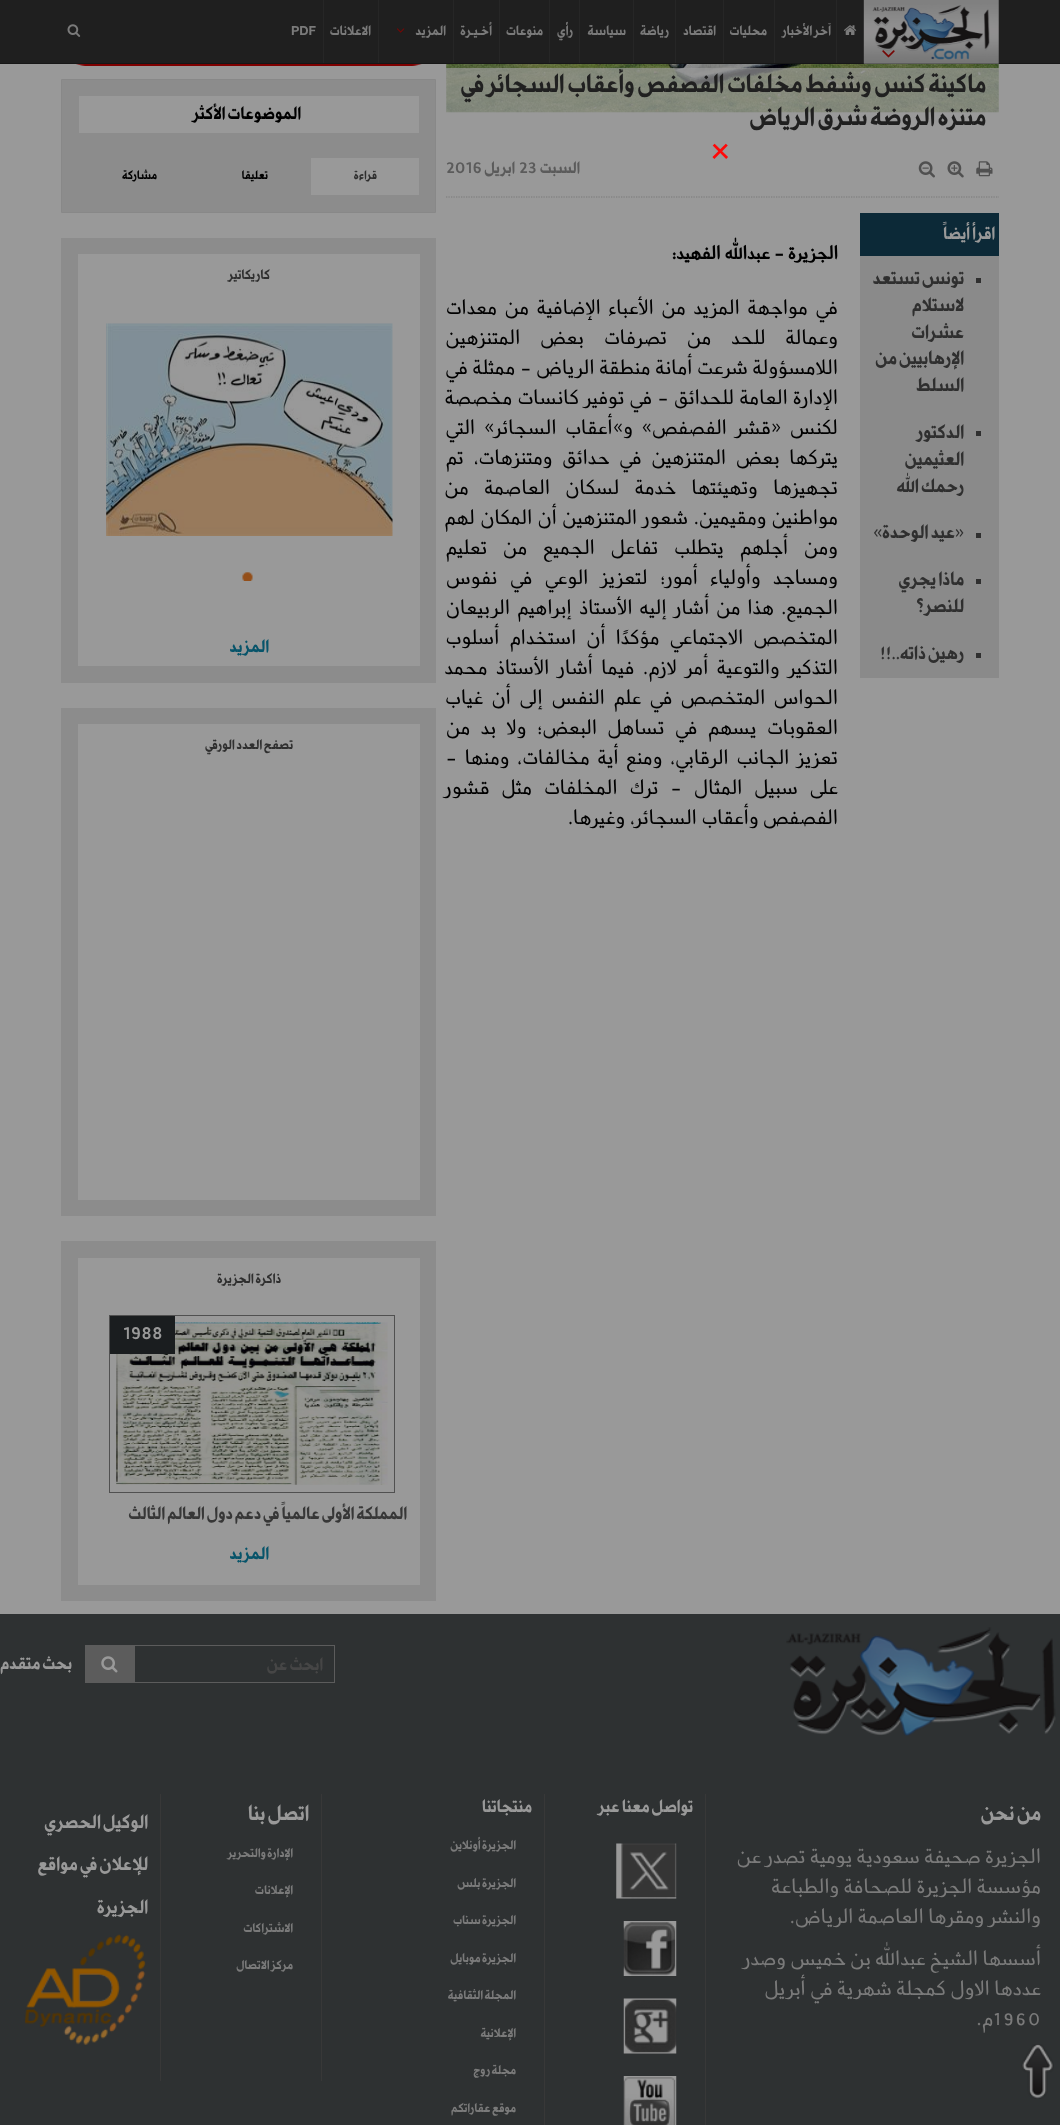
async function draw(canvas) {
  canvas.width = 1060
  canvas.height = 2125
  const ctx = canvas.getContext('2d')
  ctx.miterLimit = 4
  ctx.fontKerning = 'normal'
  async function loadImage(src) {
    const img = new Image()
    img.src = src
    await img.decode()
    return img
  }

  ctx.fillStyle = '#999'
  ctx.fillRect(0, 0, 1060, 2125)
  ctx.fillStyle = '#1f1f1f'
  ctx.fillRect(0, 0, 1060, 63)
  ctx.fillStyle = '#171717'
  ctx.fillRect(0, 63, 1060, 1)
  ctx.drawImage(await loadImage('image0.png'), 863, 0, 136, 64)
  ctx.drawImage(await loadImage('image1.png'), 882, 50, 13, 8)
  ctx.drawImage(await loadImage('image2.png'), 844, 25, 13, 10)
  ctx.fillStyle = '#262626'
  ctx.fillRect(836, 0, 1, 63)
  ctx.direction = 'rtl'
  ctx.font = 'bold 13.5px "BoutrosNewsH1"'
  ctx.fillStyle = '#7a7a7a'
  ctx.fillText('آخر الأخبار', 831, 35)
  ctx.fillStyle = '#262626'
  ctx.fillRect(774, 0, 1, 63)
  ctx.fillStyle = '#7a7a7a'
  ctx.fillText('محليات', 767, 35)
  ctx.fillStyle = '#262626'
  ctx.fillRect(723, 0, 1, 63)
  ctx.fillStyle = '#7a7a7a'
  ctx.fillText('اقتصاد', 716, 35)
  ctx.fillStyle = '#262626'
  ctx.fillRect(675, 0, 1, 63)
  ctx.fillStyle = '#7a7a7a'
  ctx.fillText('رياضة', 669, 35)
  ctx.fillStyle = '#262626'
  ctx.fillRect(633, 0, 1, 63)
  ctx.fillStyle = '#7a7a7a'
  ctx.fillText('سياسة', 626, 35)
  ctx.fillStyle = '#262626'
  ctx.fillRect(579, 0, 1, 63)
  ctx.fillStyle = '#7a7a7a'
  ctx.fillText('رأي', 573, 35)
  ctx.fillStyle = '#262626'
  ctx.fillRect(549, 0, 1, 63)
  ctx.fillStyle = '#7a7a7a'
  ctx.fillText('منوعات', 543, 35)
  ctx.fillStyle = '#262626'
  ctx.fillRect(499, 0, 1, 63)
  ctx.fillStyle = '#7a7a7a'
  ctx.fillText('أخـيـرة', 492, 35)
  ctx.fillStyle = '#262626'
  ctx.fillRect(453, 0, 1, 63)
  ctx.fillStyle = '#7a7a7a'
  ctx.fillText('المزيد', 446, 35)
  ctx.drawImage(await loadImage('image3.png'), 396, 28, 9, 5)
  ctx.fillStyle = '#262626'
  ctx.fillRect(378, 0, 1, 63)
  ctx.fillStyle = '#7a7a7a'
  ctx.fillText('الاعلانات', 371, 35)
  ctx.fillStyle = '#262626'
  ctx.fillRect(323, 0, 1, 63)
  ctx.direction = 'ltr'
  ctx.fillStyle = '#7a7a7a'
  ctx.fillText('PDF', 291, 35)
  ctx.drawImage(await loadImage('image4.png'), 67, 24, 14, 13)
  ctx.drawImage(await loadImage('image5.png'), 446, 64, 553, 49)
  ctx.fillStyle = '#999999b3'
  ctx.fillRect(446, 68, 553, 45)
  ctx.save()
  ctx.beginPath()
  ctx.rect(446, 69, 553, 67)
  ctx.clip()
  ctx.direction = 'rtl'
  ctx.font = 'bold 25.2px "BoutrosNewsH1"'
  ctx.fillStyle = '#202020'
  ctx.fillText('ماكينة كنس وشفط مخلفات الفصفص وأعقاب السجائر في', 986, 92)
  ctx.restore()
  ctx.direction = 'rtl'
  ctx.font = 'bold 25.2px "BoutrosNewsH1"'
  ctx.fillStyle = '#202020'
  ctx.fillText('متنزه الروضة شرق الرياض', 986, 125)
  ctx.beginPath()
  ctx.moveTo(446, 197)
  ctx.lineTo(999, 197)
  ctx.strokeStyle = '#7a7a7a'
  ctx.lineWidth = 1.2
  ctx.setLineDash([1.25, 1.25])
  ctx.stroke()
  ctx.drawImage(await loadImage('image6.png'), 976, 161, 17, 16)
  ctx.drawImage(await loadImage('image7.png'), 947, 161, 17, 17)
  ctx.drawImage(await loadImage('image8.png'), 918, 161, 17, 17)
  ctx.font = 'bold 16px "BoutrosNewsH1"'
  ctx.fillStyle = '#5b5b5b'
  ctx.fillText('السبت', 580, 173)
  ctx.direction = 'ltr'
  ctx.fillText('23', 519, 173)
  ctx.direction = 'rtl'
  ctx.fillText('ابريل', 515, 173)
  ctx.direction = 'ltr'
  ctx.fillText('2016', 446, 173)
  ctx.fillStyle = '#0c2937'
  ctx.fillRect(860, 213, 139, 43)
  ctx.direction = 'rtl'
  ctx.font = 'bold 17.5px "BoutrosNewsH1"'
  ctx.fillStyle = '#999'
  ctx.fillText('اقرأ أيضاً', 995, 239)
  ctx.fillStyle = '#8a8a8a'
  ctx.fillRect(860, 256, 139, 422)
  ctx.fillStyle = '#2f2f2f'
  ctx.fillRect(976, 278, 5, 5)
  ctx.font = 'bold 18.75px "BoutrosNewsH1"'
  ctx.fillText('تونس تستعد', 964, 284)
  ctx.fillText('لاستلام', 964, 311)
  ctx.fillText('عشرات', 964, 338)
  ctx.fillText('الإرهابيين من', 964, 364)
  ctx.fillText('السلط', 964, 391)
  ctx.fillRect(976, 431, 5, 5)
  ctx.fillText('الدكتور', 964, 438)
  ctx.fillText('العثيمين', 964, 465)
  ctx.fillText('رحمك الله', 964, 492)
  ctx.fillRect(976, 533, 5, 5)
  ctx.fillText('«عيد الوحدة»', 964, 538)
  ctx.fillRect(976, 579, 5, 5)
  ctx.fillText('ماذا يجري', 964, 585)
  ctx.fillText('للنصر؟', 964, 612)
  ctx.fillRect(976, 653, 5, 5)
  ctx.fillText('رهين ذاته..!!', 964, 659)
  ctx.font = 'bold 23.5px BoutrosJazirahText'
  ctx.fillStyle = '#000'
  ctx.fillText('الجزيرة - عبدالله الفهيد:', 838, 259)
  ctx.wordSpacing = '3.25px'
  ctx.font = '300 26.25px BoutrosJazirahText'
  ctx.fillText('في مواجهة المزيد من الأعباء الإضافية من معدات', 838, 314)
  ctx.wordSpacing = '15.5px'
  ctx.fillText('وعمالة للحد من تصرفات بعض المتنزهين', 838, 344)
  ctx.wordSpacing = '0.25px'
  ctx.fillText('اللامسؤولة شرعت أمانة منطقة الرياض - ممثلة في', 838, 374)
  ctx.wordSpacing = '0.75px'
  ctx.fillText('الإدارة العامة للحدائق - في توفير كانسات مخصصة', 838, 404)
  ctx.wordSpacing = '4.25px'
  ctx.fillText('لكنس «قشر الفصفص» و»أعقاب السجائر» التي', 838, 434)
  ctx.wordSpacing = '5.25px'
  ctx.fillText('يتركها بعض المتنزهين في حدائق ومتنزهات، تم', 838, 464)
  ctx.wordSpacing = '11px'
  ctx.fillText('تجهيزها وتهيئتها خدمة لسكان العاصمة من', 838, 494)
  ctx.wordSpacing = '1px'
  ctx.fillText('مواطنين ومقيمين. شعور المتنزهين أن المكان لهم', 838, 524)
  ctx.wordSpacing = '11.5px'
  ctx.fillText('ومن أجلهم يتطلب تفاعل الجميع من تعليم', 838, 554)
  ctx.wordSpacing = '8px'
  ctx.fillText('ومساجد وأولياء أمور؛ لتعزيز الوعي في نفوس', 838, 584)
  ctx.wordSpacing = '2.5px'
  ctx.fillText('الجميع. هذا من أشار إليه الأستاذ إبراهيم الربيعان', 838, 614)
  ctx.wordSpacing = '5.75px'
  ctx.fillText('المتخصص الاجتماعي مؤكدًا أن استخدام أسلوب', 838, 644)
  ctx.wordSpacing = '4px'
  ctx.fillText('التذكير والتوعية أمر لازم. فيما أشار الأستاذ محمد', 838, 674)
  ctx.fillText('الحواس المتخصص في علم النفس إلى أن غياب', 838, 704)
  ctx.wordSpacing = '6px'
  ctx.fillText('العقوبات يسهم في تساهل البعض؛ ولا بد من', 838, 734)
  ctx.wordSpacing = '3.25px'
  ctx.fillText('تعزيز الجانب الرقابي، ومنع أية مخالفات، ومنها -', 838, 764)
  ctx.wordSpacing = '7.5px'
  ctx.fillText('على سبيل المثال - ترك المخلفات مثل قشور', 838, 794)
  ctx.wordSpacing = '0px'
  ctx.fillText('الفصفص وأعقاب السجائر، وغيرها.', 838, 824)
  ctx.drawImage(await loadImage('image9.png'), 76, 64, 346, 2)
  ctx.fillStyle = '#8c8c8c'
  ctx.beginPath()
  ctx.rect(61.5, 79.5, 374, 133)
  ctx.fill()
  ctx.strokeStyle = '#888'
  ctx.lineWidth = 1
  ctx.setLineDash([])
  ctx.stroke()
  ctx.fillStyle = '#999'
  ctx.fillRect(79, 96, 340, 37)
  ctx.font = 'bold 17.5px "BoutrosNewsH1"'
  ctx.fillStyle = '#000'
  ctx.fillText('الموضوعات الأكثر', 301, 119)
  ctx.fillStyle = '#999'
  ctx.fillRect(311, 158, 108, 37)
  ctx.font = 'bold 12px "BoutrosNewsH1"'
  ctx.fillStyle = '#2f2f2f'
  ctx.fillText('قراءة', 377, 179)
  ctx.fillStyle = '#000'
  ctx.fillText('تعليقا', 268, 179)
  ctx.fillText('مشاركة', 157, 179)
  ctx.fillStyle = '#8c8c8c'
  ctx.fillRect(61, 238, 375, 445)
  ctx.fillStyle = '#999'
  ctx.fillRect(78, 254, 342, 412)
  ctx.font = 'bold 13.5px "BoutrosNewsH1"'
  ctx.fillStyle = '#2f2f2f'
  ctx.fillText('كاريكاتير', 270, 279)
  ctx.drawImage(await loadImage('image10.png'), 106, 323, 287, 213)
  ctx.drawImage(await loadImage('image11.png'), 242, 572, 11, 9)
  ctx.font = 'bold 17.5px "BoutrosNewsH1"'
  ctx.fillStyle = '#07546a'
  ctx.fillText('المزيد', 269, 652)
  ctx.fillStyle = '#8c8c8c'
  ctx.fillRect(61, 708, 375, 508)
  ctx.fillStyle = '#999'
  ctx.fillRect(78, 724, 342, 476)
  ctx.font = 'bold 13.5px "BoutrosNewsH1"'
  ctx.fillStyle = '#2f2f2f'
  ctx.fillText('تصفح العدد الورقي', 293, 749)
  ctx.fillStyle = '#8c8c8c'
  ctx.fillRect(61, 1241, 375, 360)
  ctx.fillStyle = '#999'
  ctx.fillRect(78, 1258, 342, 327)
  ctx.fillStyle = '#2f2f2f'
  ctx.fillText('ذاكرة الجزيرة', 281, 1283)
  ctx.strokeStyle = '#505050'
  ctx.strokeRect(109.5, 1315.5, 285, 177)
  ctx.drawImage(await loadImage('image12.png'), 116, 1322, 272, 163)
  ctx.fillStyle = '#1a1d1f'
  ctx.fillRect(110, 1316, 65, 38)
  ctx.direction = 'ltr'
  ctx.font = 'bold 17.5px "BoutrosNewsH1"'
  ctx.fillStyle = '#999'
  ctx.fillText('1988', 123, 1339)
  ctx.direction = 'rtl'
  ctx.fillStyle = '#373737'
  ctx.fillText('المملكة الأولى عالمياً في دعم دول العالم الثالث', 407, 1519)
  ctx.fillStyle = '#07546a'
  ctx.fillText('المزيد', 269, 1559)
  ctx.direction = 'ltr'
  ctx.font = 'bold 35px "BoutrosNewsH1"'
  ctx.fillStyle = '#ff0808'
  ctx.fillText('×', 711, 159)
  ctx.fillStyle = '#2e3132'
  ctx.fillRect(0, 1614, 1060, 511)
  ctx.drawImage(await loadImage('image13.png'), 786, 1627, 270, 109)
  ctx.strokeStyle = '#5c5c5c'
  ctx.strokeRect(85.5, 1645.5, 249, 37)
  ctx.direction = 'rtl'
  ctx.font = 'bold 17.5px "BoutrosNewsH1"'
  ctx.fillStyle = '#464646'
  ctx.fillText('ابحث عن', 323, 1670)
  ctx.fillStyle = '#5c5c5c'
  ctx.fillRect(86, 1646, 49, 36)
  ctx.drawImage(await loadImage('image14.png'), 101, 1656, 17, 17)
  ctx.fillStyle = '#999'
  ctx.fillText('بحث متقدم', 72, 1669)
  ctx.font = 'bold 21px "BoutrosNewsH1"'
  ctx.fillText('من نحن', 1041, 1820)
  ctx.font = '300 26.25px BoutrosJazirahText'
  ctx.fillStyle = '#7a7a7a'
  ctx.fillText('الجزيرة صحيفة سعودية يومية تصدر عن', 1041, 1863)
  ctx.fillText('مؤسسة الجزيرة للصحافة والطباعة', 1041, 1893)
  ctx.fillText('والنشر ومقرها العاصمة الرياض.', 1041, 1923)
  ctx.fillText('أسسها الشيخ عبدالله بن خميس وصدر', 1041, 1965)
  ctx.fillText('عددها الاول كمجلة شهرية في أبريل', 1041, 1995)
  ctx.direction = 'ltr'
  ctx.fillText('1960', 993, 2025)
  ctx.direction = 'rtl'
  ctx.fillText('م.', 993, 2025)
  ctx.fillStyle = '#383838'
  ctx.fillRect(705, 1794, 1, 331)
  ctx.font = 'bold 17.5px "BoutrosNewsH1"'
  ctx.fillStyle = '#999'
  ctx.fillText('تواصل معنا عبر', 693, 1812)
  ctx.drawImage(await loadImage('image15.png'), 616, 1843, 61, 56)
  ctx.drawImage(await loadImage('image16.png'), 623, 1921, 54, 55)
  ctx.drawImage(await loadImage('image17.png'), 623, 1998, 54, 56)
  ctx.drawImage(await loadImage('image18.png'), 623, 2076, 54, 49)
  ctx.fillStyle = '#383838'
  ctx.fillRect(544, 1794, 1, 331)
  ctx.fillStyle = '#999'
  ctx.fillText('منتجاتنا', 532, 1812)
  ctx.font = 'bold 12.5px "BoutrosNewsH1"'
  ctx.fillStyle = '#7a7a7a'
  ctx.fillText('الجزيرة أونلاين', 516, 1849)
  ctx.fillText('الجزيرة بلس', 516, 1887)
  ctx.fillText('الجزيرة سناب', 516, 1924)
  ctx.fillText('الجزيرة موبايل', 516, 1962)
  ctx.fillText('المجلة الثقافية', 516, 1999)
  ctx.fillText('الإعلانية', 516, 2037)
  ctx.fillText('مجلة روج', 516, 2074)
  ctx.fillText('موقع عقاراتكم', 516, 2112)
  ctx.fillStyle = '#383838'
  ctx.fillRect(321, 1794, 1, 287)
  ctx.font = 'bold 21px "BoutrosNewsH1"'
  ctx.fillStyle = '#999'
  ctx.fillText('اتصل بنا', 309, 1820)
  ctx.font = 'bold 12.5px "BoutrosNewsH1"'
  ctx.fillStyle = '#7a7a7a'
  ctx.fillText('الإدارة والتحرير', 293, 1857)
  ctx.fillText('الإعلانات', 293, 1894)
  ctx.fillText('الاشتراكات', 293, 1932)
  ctx.fillText('مركز الاتصال', 293, 1969)
  ctx.fillStyle = '#383838'
  ctx.fillRect(160, 1794, 1, 287)
  ctx.font = 'bold 18.75px "BoutrosNewsH1"'
  ctx.fillStyle = '#999'
  ctx.fillText('الوكيل الحصري', 148, 1828)
  ctx.fillText('للإعلان في مواقع', 148, 1870)
  ctx.fillText('الجزيرة', 148, 1913)
  ctx.drawImage(await loadImage('image19.png'), 24, 1934, 122, 111)
  ctx.drawImage(await loadImage('image20.png'), 1021, 2044, 33, 55)
}

draw(document.querySelector('canvas'))
